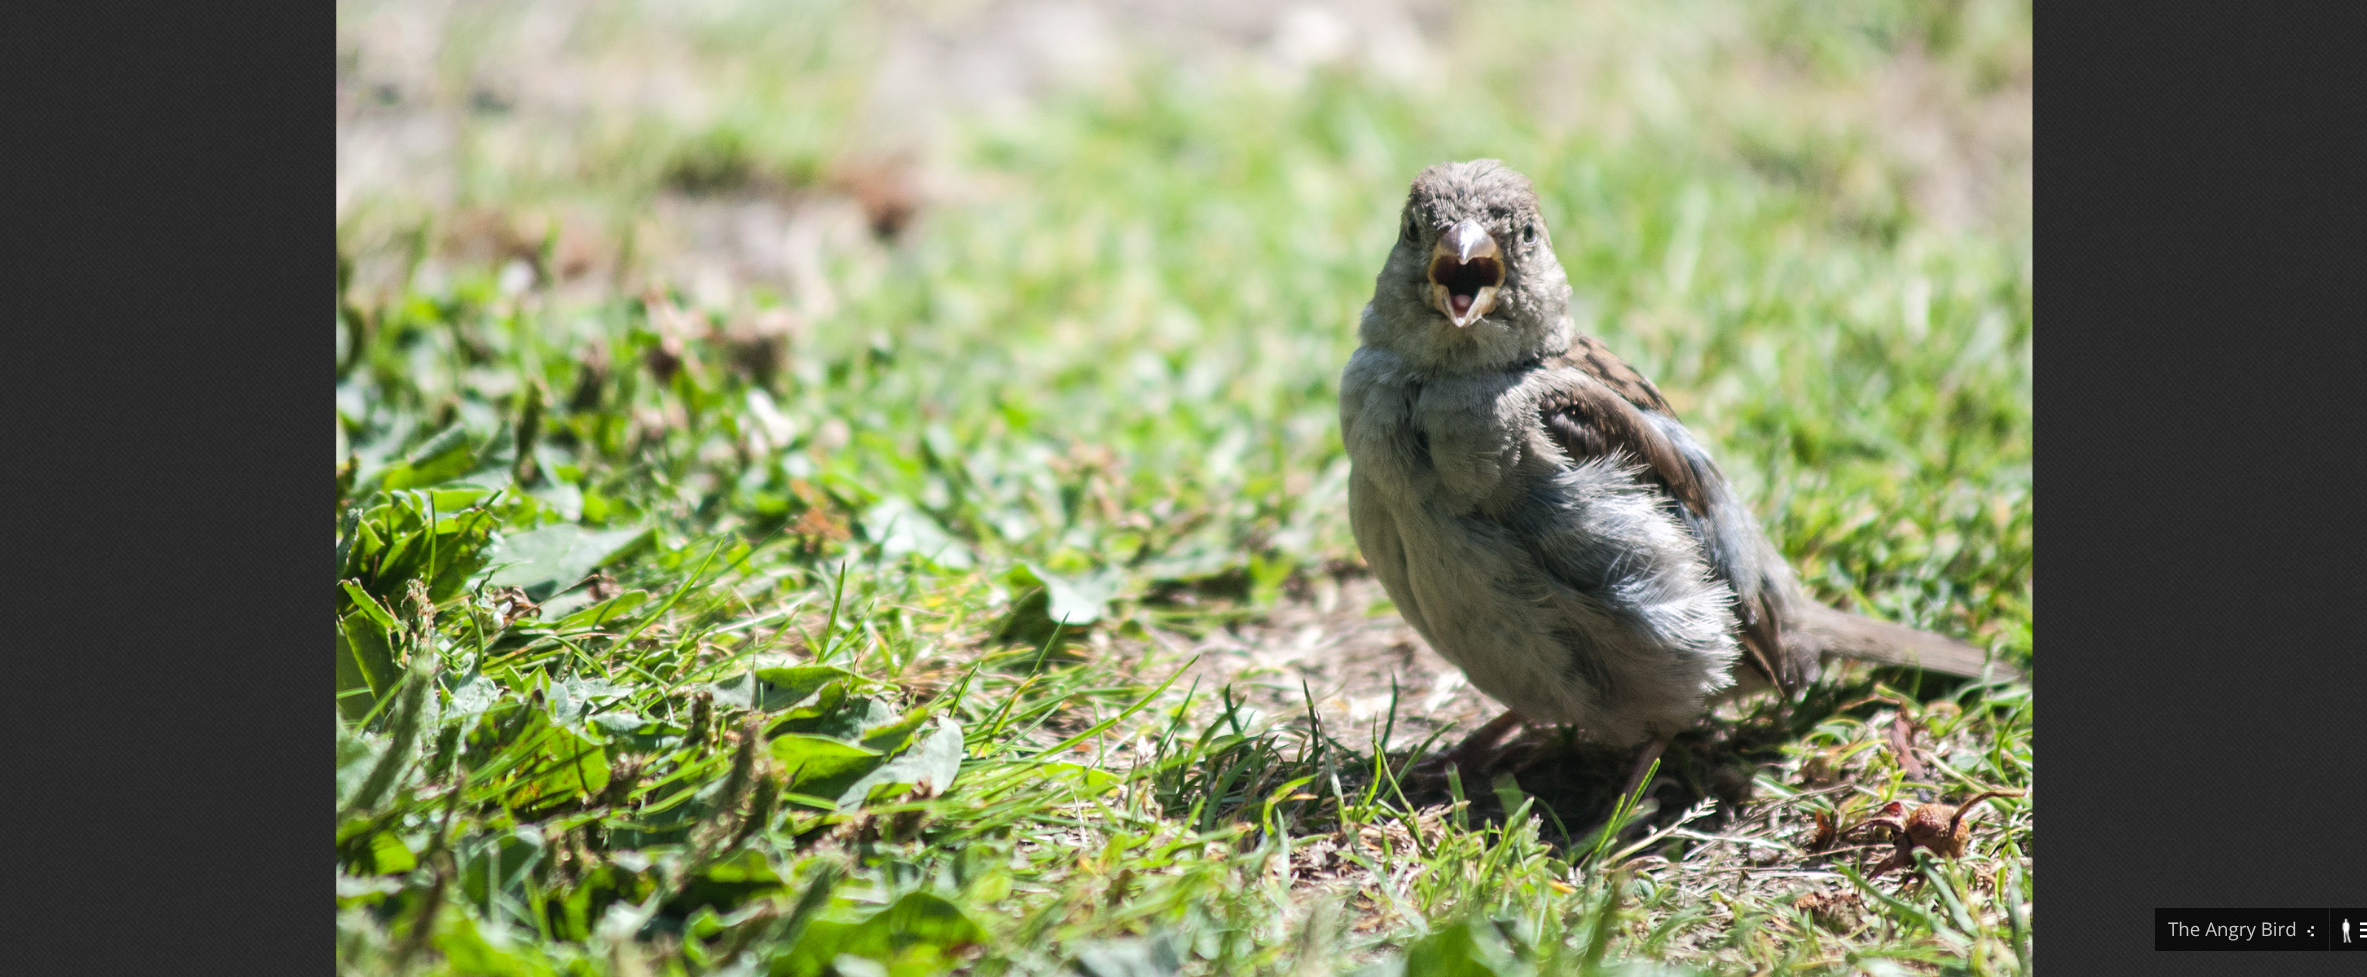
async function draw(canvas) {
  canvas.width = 2367
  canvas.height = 977
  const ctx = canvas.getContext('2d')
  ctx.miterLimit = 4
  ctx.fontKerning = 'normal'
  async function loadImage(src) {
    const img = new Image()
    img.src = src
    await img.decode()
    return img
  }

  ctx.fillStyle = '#fff'
  ctx.fillRect(0, 0, 2367, 977)
  ctx.drawImage(await loadImage('image0.png'), 0, 0, 2367, 977)
  ctx.drawImage(await loadImage('image1.png'), 336, 0, 1697, 977)
  ctx.fillStyle = '#000000b3'
  ctx.fillRect(2155, 908, 174, 43)
  ctx.font = '18.75px Open Sans'
  ctx.fillStyle = '#c6c6c5'
  ctx.fillText('The Angry Bird', 2168, 936)
  ctx.drawImage(await loadImage('image2.png'), 2307, 926, 7, 11)
  ctx.fillStyle = '#000000b3'
  ctx.fillRect(2330, 908, 25, 43)
  ctx.fillRect(2355, 908, 12, 43)
  ctx.drawImage(await loadImage('image3.png'), 2360, 922, 7, 16)
  ctx.drawImage(await loadImage('image4.png'), 2342, 918, 10, 25)
}

draw(document.querySelector('canvas'))
